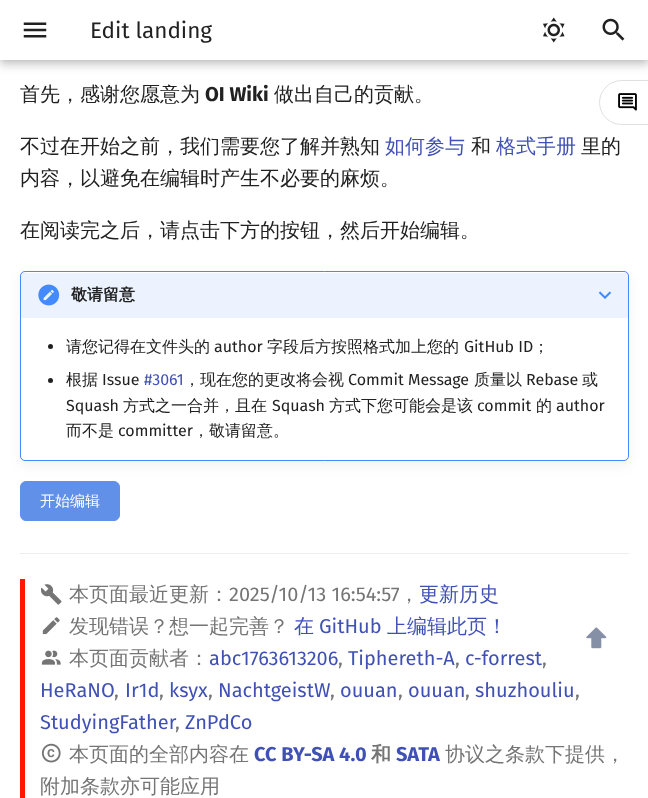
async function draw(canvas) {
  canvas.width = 648
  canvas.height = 798
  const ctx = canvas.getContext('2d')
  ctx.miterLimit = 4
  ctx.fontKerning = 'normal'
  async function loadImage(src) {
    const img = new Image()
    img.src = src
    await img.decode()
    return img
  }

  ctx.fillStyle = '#fff'
  ctx.fillRect(0, 0, 648, 798)
  ctx.fillStyle = '#00000033'
  ctx.filter = 'blur(5px)'
  ctx.beginPath()
  ctx.rect(0, 5, 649, 60)
  ctx.fill()
  ctx.filter = 'none'
  ctx.fillStyle = '#0000001a'
  ctx.filter = 'blur(2.5px)'
  ctx.beginPath()
  ctx.rect(0, 0, 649, 60)
  ctx.fill()
  ctx.filter = 'none'
  ctx.fillStyle = '#fff'
  ctx.fillRect(0, 0, 648, 60)
  ctx.drawImage(await loadImage('image0.png'), 23, 22, 24, 16)
  ctx.font = '22.5px Fira Sans'
  ctx.fillStyle = '#212121'
  ctx.fillText('Edit landing', 90, 38)
  ctx.drawImage(await loadImage('image1.png'), 543, 17, 22, 26)
  ctx.drawImage(await loadImage('image2.png'), 602, 18, 23, 23)
  ctx.font = '500 20px WenQuanYi Zen Hei'
  ctx.fillText('首先，感谢您愿意为', 20, 101)
  ctx.font = 'bold 20px Fira Sans'
  ctx.fillText('OI Wiki', 205, 101)
  ctx.font = '500 20px WenQuanYi Zen Hei'
  ctx.fillText('做出自己的贡献。', 274, 101)
  ctx.fillText('不过在开始之前，我们需要您了解并熟知', 20, 153)
  ctx.fillStyle = '#4051b5'
  ctx.fillText('如何参与', 385, 153)
  ctx.fillStyle = '#212121'
  ctx.fillText('和', 471, 153)
  ctx.fillStyle = '#4051b5'
  ctx.fillText('格式手册', 496, 153)
  ctx.fillStyle = '#212121'
  ctx.fillText('里的', 581, 153)
  ctx.fillText('内容，以避免在编辑时产生不必要的麻烦。', 20, 185)
  ctx.fillText('在阅读完之后，请点击下方的按钮，然后开始编辑。', 20, 237)
  ctx.fillStyle = '#0000001a'
  ctx.filter = 'blur(0.5px)'
  ctx.beginPath()
  ctx.roundRect(20, 271, 609, 190, 5)
  ctx.fill()
  ctx.filter = 'none'
  ctx.fillStyle = '#0000000d'
  ctx.filter = 'blur(6px)'
  ctx.beginPath()
  ctx.roundRect(20, 276, 609, 190, 5)
  ctx.fill()
  ctx.filter = 'none'
  ctx.fillStyle = '#fff'
  ctx.beginPath()
  ctx.roundRect(20.5, 271.5, 608, 189, 4.5)
  ctx.fill()
  ctx.strokeStyle = '#448aff'
  ctx.stroke()
  ctx.fillStyle = '#448aff1a'
  ctx.beginPath()
  ctx.roundRect(21, 273, 607, 45, [2.5, 2.5, 0, 0])
  ctx.fill()
  ctx.drawImage(await loadImage('image3.png'), 38, 284, 22, 22)
  ctx.font = 'bold 16px WenQuanYi Zen Hei'
  ctx.fillStyle = '#212121'
  ctx.fillText('敬请留意', 71, 300)
  ctx.drawImage(await loadImage('image4.png'), 598, 291, 14, 8)
  ctx.beginPath()
  ctx.arc(50.5, 346.5, 2.5, 0, 2 * Math.PI)
  ctx.fill()
  ctx.font = '500 16px WenQuanYi Zen Hei'
  ctx.fillText('请您记得在文件头的', 66, 352)
  ctx.font = '16px Fira Sans'
  ctx.fillText('author', 214, 352)
  ctx.font = '500 16px WenQuanYi Zen Hei'
  ctx.fillText('字段后方按照格式加上您的', 267, 352)
  ctx.font = '16px Fira Sans'
  ctx.fillText('GitHub ID', 464, 352)
  ctx.font = '500 16px WenQuanYi Zen Hei'
  ctx.fillText('；', 533, 352)
  ctx.beginPath()
  ctx.arc(50.5, 380.5, 2.5, 0, 2 * Math.PI)
  ctx.fill()
  ctx.fillText('根据', 66, 385)
  ctx.font = '16px Fira Sans'
  ctx.fillText('Issue', 102, 385)
  ctx.fillStyle = '#4051b5'
  ctx.fillText('#3061', 144, 385)
  ctx.font = '500 16px WenQuanYi Zen Hei'
  ctx.fillStyle = '#212121'
  ctx.fillText('，现在您的更改将会视', 184, 385)
  ctx.font = '16px Fira Sans'
  ctx.fillText('Commit Message', 348, 385)
  ctx.font = '500 16px WenQuanYi Zen Hei'
  ctx.fillText('质量以', 474, 385)
  ctx.font = '16px Fira Sans'
  ctx.fillText('Rebase', 526, 385)
  ctx.font = '500 16px WenQuanYi Zen Hei'
  ctx.fillText('或', 582, 385)
  ctx.font = '16px Fira Sans'
  ctx.fillText('Squash', 66, 411)
  ctx.font = '500 16px WenQuanYi Zen Hei'
  ctx.fillText('方式之一合并，且在', 123, 411)
  ctx.font = '16px Fira Sans'
  ctx.fillText('Squash', 272, 411)
  ctx.font = '500 16px WenQuanYi Zen Hei'
  ctx.fillText('方式下您可能会是该', 329, 411)
  ctx.font = '16px Fira Sans'
  ctx.fillText('commit', 477, 411)
  ctx.font = '500 16px WenQuanYi Zen Hei'
  ctx.fillText('的', 536, 411)
  ctx.font = '16px Fira Sans'
  ctx.fillText('author', 556, 411)
  ctx.font = '500 16px WenQuanYi Zen Hei'
  ctx.fillText('而不是', 66, 436)
  ctx.font = '16px Fira Sans'
  ctx.fillText('committer', 118, 436)
  ctx.font = '500 16px WenQuanYi Zen Hei'
  ctx.fillText('，敬请留意。', 193, 436)
  ctx.fillStyle = '#6190e8'
  ctx.beginPath()
  ctx.roundRect(20.5, 481.5, 99, 39, 5.5)
  ctx.fill()
  ctx.strokeStyle = '#6190e8'
  ctx.stroke()
  ctx.font = '500 15px WenQuanYi Zen Hei'
  ctx.fillStyle = '#fff'
  ctx.fillText('开始编辑', 40, 506)
  ctx.fillStyle = '#ededed'
  ctx.fillRect(20, 553, 609, 1)
  ctx.fillStyle = '#ff1700'
  ctx.fillRect(20, 579, 5, 219)
  ctx.drawImage(await loadImage('image5.png'), 41, 584, 21, 21)
  ctx.font = '500 20px WenQuanYi Zen Hei'
  ctx.fillStyle = '#757575'
  ctx.fillText('本页面最近更新：', 69, 601)
  ctx.font = '20px Fira Sans'
  ctx.fillText('2025/10/13 16:54:57', 229, 601)
  ctx.font = '500 20px WenQuanYi Zen Hei'
  ctx.fillText('，', 399, 601)
  ctx.fillStyle = '#4051b5'
  ctx.fillText('更新历史', 419, 601)
  ctx.drawImage(await loadImage('image6.png'), 42, 617, 18, 18)
  ctx.fillStyle = '#757575'
  ctx.fillText('发现错误？想一起完善？', 69, 633)
  ctx.fillStyle = '#4051b5'
  ctx.fillText('在', 294, 633)
  ctx.font = '20px Fira Sans'
  ctx.fillText('GitHub', 319, 633)
  ctx.font = '500 20px WenQuanYi Zen Hei'
  ctx.fillText('上编辑此页！', 387, 633)
  ctx.drawImage(await loadImage('image7.png'), 41, 650, 20, 15)
  ctx.fillStyle = '#757575'
  ctx.fillText('本页面贡献者：', 69, 665)
  ctx.font = '20px Fira Sans'
  ctx.fillStyle = '#4051b5'
  ctx.fillText('abc1763613206', 209, 665)
  ctx.fillStyle = '#757575'
  ctx.fillText(',', 338, 665)
  ctx.fillStyle = '#4051b5'
  ctx.fillText('Tiphereth-A', 348, 665)
  ctx.fillStyle = '#757575'
  ctx.fillText(',', 455, 665)
  ctx.fillStyle = '#4051b5'
  ctx.fillText('c-forrest', 465, 665)
  ctx.fillStyle = '#757575'
  ctx.fillText(',', 542, 665)
  ctx.fillStyle = '#4051b5'
  ctx.fillText('HeRaNO', 40, 697)
  ctx.fillStyle = '#757575'
  ctx.fillText(',', 114, 697)
  ctx.fillStyle = '#4051b5'
  ctx.fillText('Ir1d', 125, 697)
  ctx.fillStyle = '#757575'
  ctx.fillText(',', 159, 697)
  ctx.fillStyle = '#4051b5'
  ctx.fillText('ksyx', 169, 697)
  ctx.fillStyle = '#757575'
  ctx.fillText(',', 208, 697)
  ctx.fillStyle = '#4051b5'
  ctx.fillText('NachtgeistW', 218, 697)
  ctx.fillStyle = '#757575'
  ctx.fillText(',', 330, 697)
  ctx.fillStyle = '#4051b5'
  ctx.fillText('ouuan', 340, 697)
  ctx.fillStyle = '#757575'
  ctx.fillText(',', 398, 697)
  ctx.fillStyle = '#4051b5'
  ctx.fillText('ouuan', 408, 697)
  ctx.fillStyle = '#757575'
  ctx.fillText(',', 465, 697)
  ctx.fillStyle = '#4051b5'
  ctx.fillText('shuzhouliu', 475, 697)
  ctx.fillStyle = '#757575'
  ctx.fillText(',', 575, 697)
  ctx.fillStyle = '#4051b5'
  ctx.fillText('StudyingFather', 40, 729)
  ctx.fillText('ZnPdCo', 185, 729)
  ctx.fillStyle = '#757575'
  ctx.fillText(',', 175, 729)
  ctx.drawImage(await loadImage('image8.png'), 41, 743, 20, 20)
  ctx.font = '500 20px WenQuanYi Zen Hei'
  ctx.fillText('本页面的全部内容在', 69, 761)
  ctx.font = 'bold 20px Fira Sans'
  ctx.fillStyle = '#4051b5'
  ctx.fillText('CC BY-SA 4.0', 254, 761)
  ctx.font = 'bold 20px WenQuanYi Zen Hei'
  ctx.fillStyle = '#757575'
  ctx.fillText('和', 371, 761)
  ctx.font = 'bold 20px Fira Sans'
  ctx.fillStyle = '#4051b5'
  ctx.fillText('SATA', 396, 761)
  ctx.font = '500 20px WenQuanYi Zen Hei'
  ctx.fillStyle = '#757575'
  ctx.fillText('协议之条款下提供，', 445, 761)
  ctx.fillText('附加条款亦可能应用', 40, 793)
  ctx.drawImage(await loadImage('image9.png'), 586, 627, 21, 22)
  ctx.beginPath()
  ctx.moveTo(621.5, 80.5)
  ctx.lineTo(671.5, 80.5)
  ctx.lineTo(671.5, 124.5)
  ctx.lineTo(621.5, 124.5)
  ctx.bezierCurveTo(609.5, 124.5, 599.5, 114.5, 599.5, 102.5)
  ctx.bezierCurveTo(599.5, 90.5, 609.5, 80.5, 621.5, 80.5)
  ctx.closePath()
  ctx.strokeStyle = '#dee0e3'
  ctx.stroke()
  ctx.drawImage(await loadImage('image10.png'), 618, 93, 19, 18)
}

draw(document.querySelector('canvas'))
